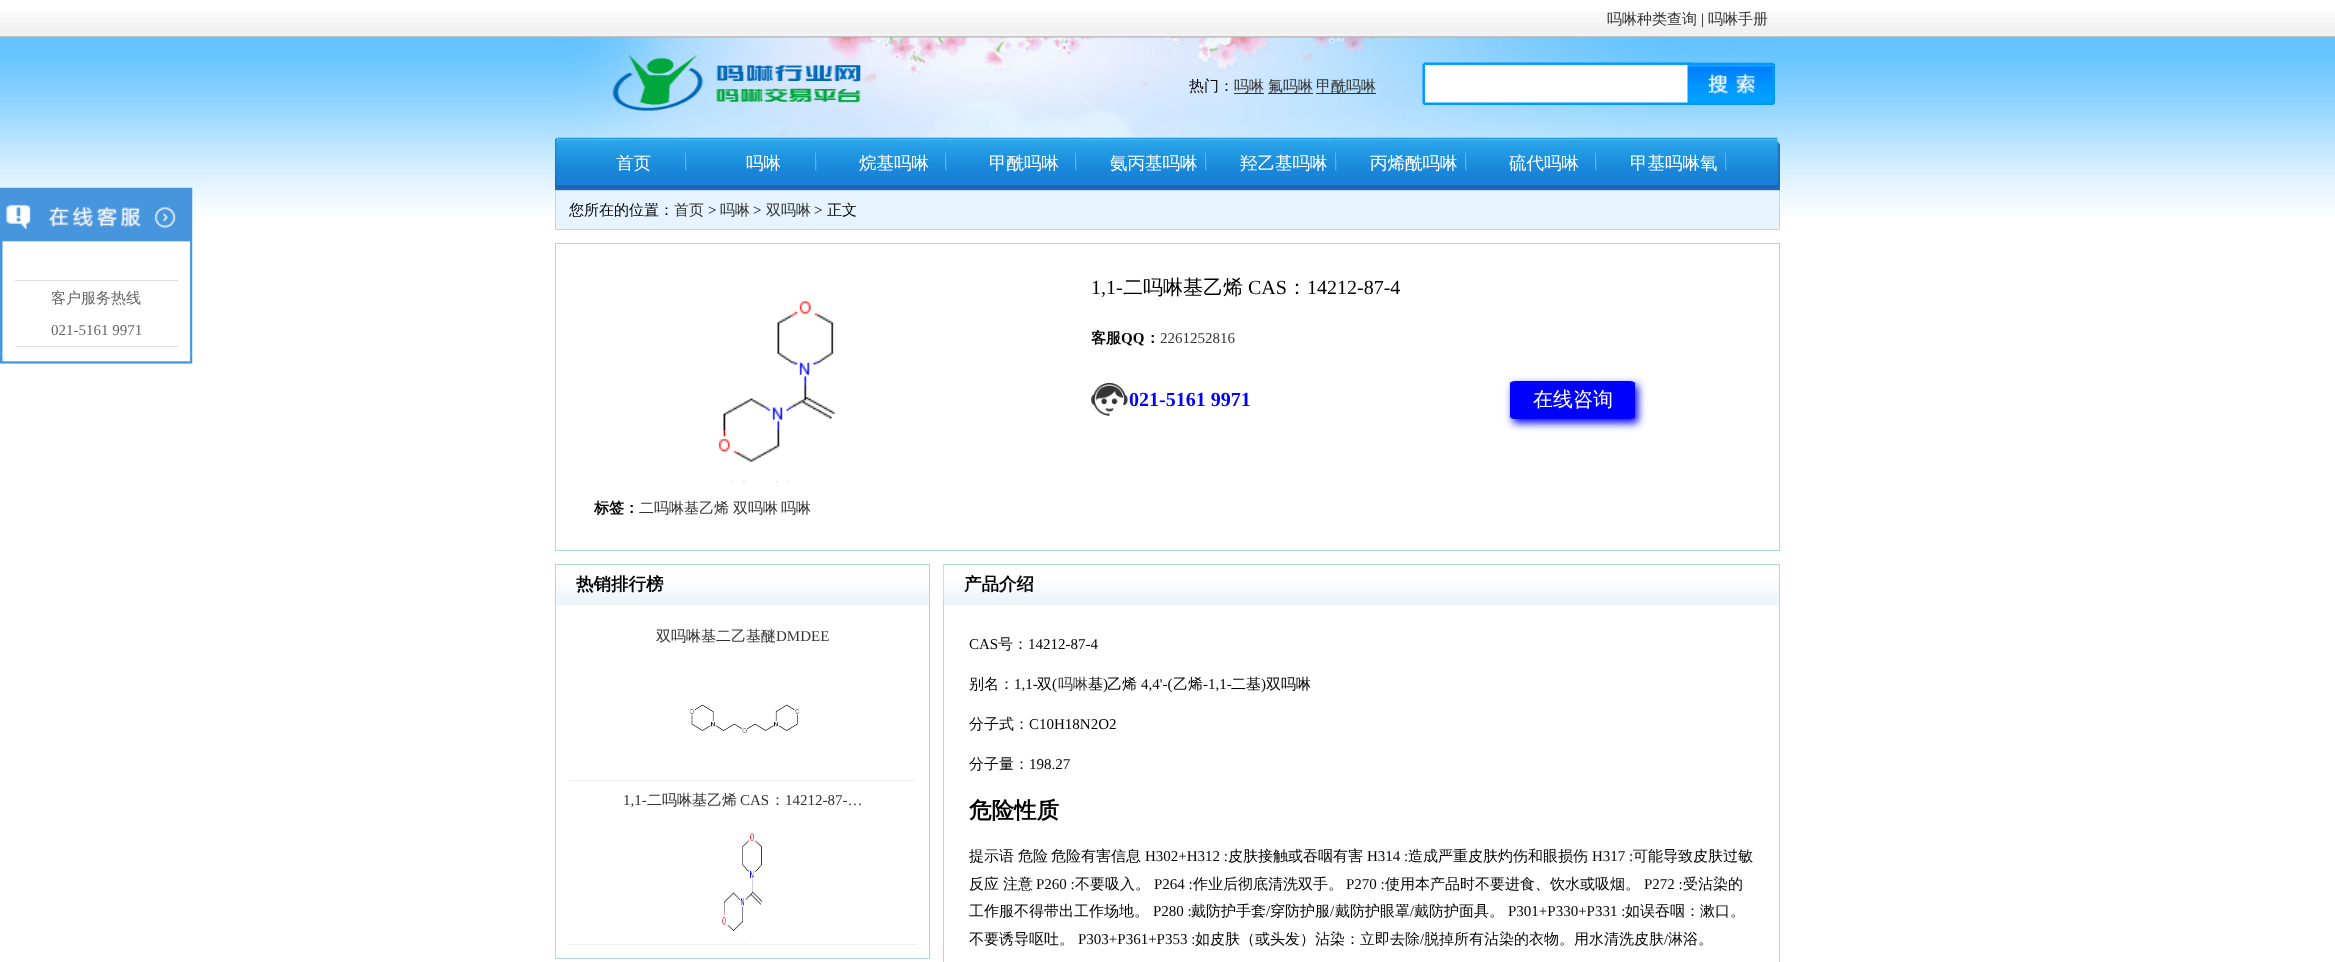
async function draw(canvas) {
  canvas.width = 2335
  canvas.height = 962
  const ctx = canvas.getContext('2d')
  ctx.miterLimit = 4
  ctx.fontKerning = 'normal'
  async function loadImage(src) {
    const img = new Image()
    img.src = src
    await img.decode()
    return img
  }

  ctx.fillStyle = '#fff'
  ctx.fillRect(0, 0, 2335, 962)
  ctx.drawImage(await loadImage('image0.png'), 0, 11, 2335, 205)
  ctx.font = '500 15px WenQuanYi Zen Hei'
  ctx.fillStyle = '#333'
  ctx.fillText('吗啉种类查询', 1607, 24)
  ctx.font = '15px Liberation Serif'
  ctx.fillStyle = '#000'
  ctx.fillText('|', 1701, 24)
  ctx.font = '500 15px WenQuanYi Zen Hei'
  ctx.fillStyle = '#333'
  ctx.fillText('吗啉手册', 1708, 24)
  ctx.drawImage(await loadImage('image1.png'), 555, 37, 1225, 101)
  ctx.drawImage(await loadImage('image2.png'), 612, 54, 249, 57)
  ctx.fillStyle = '#000'
  ctx.fillText('热门：', 1189, 91)
  ctx.fillStyle = '#333'
  ctx.fillText('吗啉', 1234, 91)
  ctx.fillRect(1234, 93, 30, 1)
  ctx.fillRect(1268, 93, 45, 1)
  ctx.fillText('氟吗啉', 1268, 91)
  ctx.fillText('甲酰吗啉', 1316, 91)
  ctx.fillRect(1316, 93, 60, 1)
  ctx.drawImage(await loadImage('image3.png'), 1422, 62, 271, 43)
  ctx.drawImage(await loadImage('image4.png'), 1687, 62, 88, 43)
  ctx.drawImage(await loadImage('image5.png'), 555, 142, 1225, 48)
  ctx.drawImage(await loadImage('image6.png'), 555, 137, 3, 52)
  ctx.drawImage(await loadImage('image17.png'), 1777, 142, 3, 47)
  ctx.drawImage(await loadImage('image7.png'), 557, 137, 1221, 52)
  ctx.font = '500 17.5px WenQuanYi Zen Hei'
  ctx.fillStyle = '#fff'
  ctx.fillText('首页', 616, 169)
  ctx.drawImage(await loadImage('image8.png'), 685, 137, 3, 34)
  ctx.fillText('吗啉', 746, 169)
  ctx.drawImage(await loadImage('image9.png'), 815, 137, 3, 34)
  ctx.fillText('烷基吗啉', 859, 169)
  ctx.drawImage(await loadImage('image10.png'), 945, 137, 3, 34)
  ctx.fillText('甲酰吗啉', 989, 169)
  ctx.drawImage(await loadImage('image11.png'), 1075, 137, 3, 34)
  ctx.fillText('氨丙基吗啉', 1110, 169)
  ctx.drawImage(await loadImage('image12.png'), 1205, 137, 3, 34)
  ctx.fillText('羟乙基吗啉', 1240, 169)
  ctx.drawImage(await loadImage('image13.png'), 1335, 137, 3, 34)
  ctx.fillText('丙烯酰吗啉', 1370, 169)
  ctx.drawImage(await loadImage('image14.png'), 1465, 137, 3, 34)
  ctx.fillText('硫代吗啉', 1509, 169)
  ctx.drawImage(await loadImage('image15.png'), 1595, 137, 3, 34)
  ctx.fillText('甲基吗啉氧', 1630, 169)
  ctx.drawImage(await loadImage('image16.png'), 1725, 137, 3, 34)
  ctx.fillStyle = '#e7f4ff'
  ctx.beginPath()
  ctx.rect(555.5, 190.5, 1224, 39)
  ctx.fill()
  ctx.strokeStyle = '#bed7e8'
  ctx.stroke()
  ctx.font = '500 15px WenQuanYi Zen Hei'
  ctx.fillStyle = '#000'
  ctx.fillText('您所在的位置：', 569, 215)
  ctx.fillStyle = '#333'
  ctx.fillText('首页', 674, 215)
  ctx.font = '15px Liberation Serif'
  ctx.fillStyle = '#000'
  ctx.fillText('>', 708, 215)
  ctx.font = '500 15px WenQuanYi Zen Hei'
  ctx.fillStyle = '#333'
  ctx.fillText('吗啉', 720, 215)
  ctx.font = '15px Liberation Serif'
  ctx.fillStyle = '#000'
  ctx.fillText('>', 753, 215)
  ctx.font = '500 15px WenQuanYi Zen Hei'
  ctx.fillStyle = '#333'
  ctx.fillText('双吗啉', 766, 215)
  ctx.font = '15px Liberation Serif'
  ctx.fillStyle = '#000'
  ctx.fillText('>', 814, 215)
  ctx.font = '500 15px WenQuanYi Zen Hei'
  ctx.fillText('正文', 827, 215)
  ctx.drawImage(await loadImage('image18.png'), 0, 187, 193, 58)
  ctx.drawImage(await loadImage('image19.png'), 154, 207, 22, 21)
  ctx.drawImage(await loadImage('image20.png'), 0, 245, 193, 109)
  ctx.fillStyle = '#ddd'
  ctx.fillRect(15, 280, 163, 1)
  ctx.fillRect(15, 346, 163, 1)
  ctx.fillStyle = '#666'
  ctx.fillText('客户服务热线', 51, 303)
  ctx.font = '15px Liberation Serif'
  ctx.fillText('021-5161 9971', 51, 335)
  ctx.drawImage(await loadImage('image21.png'), 0, 353, 193, 11)
  ctx.strokeStyle = '#b0d4ec'
  ctx.strokeRect(555.5, 243.5, 1224, 307)
  ctx.font = '20px Liberation Serif'
  ctx.fillStyle = '#000'
  ctx.fillText('1,1-', 1091, 294)
  ctx.font = '500 20px WenQuanYi Zen Hei'
  ctx.fillText('二吗啉基乙烯', 1123, 294)
  ctx.font = '20px Liberation Serif'
  ctx.fillText('CAS', 1248, 294)
  ctx.font = '500 20px WenQuanYi Zen Hei'
  ctx.fillText('：', 1287, 294)
  ctx.font = '20px Liberation Serif'
  ctx.fillText('14212-87-4', 1307, 294)
  ctx.font = 'bold 15px WenQuanYi Zen Hei'
  ctx.fillText('客服', 1091, 343)
  ctx.font = 'bold 15px Liberation Serif'
  ctx.fillText('QQ', 1121, 343)
  ctx.font = 'bold 15px WenQuanYi Zen Hei'
  ctx.fillText('：', 1145, 343)
  ctx.font = '15px Liberation Serif'
  ctx.fillStyle = '#333'
  ctx.fillText('2261252816', 1160, 343)
  ctx.drawImage(await loadImage('image22.png'), 1091, 382, 37, 35)
  ctx.font = 'bold 20px Liberation Serif'
  ctx.fillStyle = '#00f'
  ctx.fillText('021-5161 9971', 1129, 406)
  ctx.filter = 'blur(4.5px)'
  ctx.beginPath()
  ctx.roundRect(1513, 385, 125, 38, 2)
  ctx.fill()
  ctx.filter = 'none'
  ctx.beginPath()
  ctx.moveTo(1516, 381)
  ctx.lineTo(1629, 381)
  ctx.bezierCurveTo(1632, 381, 1635, 382, 1635, 383)
  ctx.lineTo(1635, 417)
  ctx.bezierCurveTo(1635, 418, 1632, 419, 1629, 419)
  ctx.lineTo(1516, 419)
  ctx.bezierCurveTo(1513, 419, 1510, 418, 1510, 417)
  ctx.lineTo(1510, 383)
  ctx.bezierCurveTo(1510, 382, 1513, 381, 1516, 381)
  ctx.closePath()
  ctx.fill()
  ctx.font = '500 20px WenQuanYi Zen Hei'
  ctx.fillStyle = '#fff'
  ctx.fillText('在线咨询', 1533, 406)
  ctx.drawImage(await loadImage('image23.png'), 718, 301, 117, 182)
  ctx.font = 'bold 15px WenQuanYi Zen Hei'
  ctx.fillStyle = '#000'
  ctx.fillText('标签：', 594, 513)
  ctx.font = '500 15px WenQuanYi Zen Hei'
  ctx.fillStyle = '#333'
  ctx.fillText('二吗啉基乙烯', 639, 513)
  ctx.fillText('双吗啉', 733, 513)
  ctx.fillText('吗啉', 781, 513)
  ctx.strokeRect(555.5, 564.5, 374, 394)
  ctx.drawImage(await loadImage('image24.png'), 556, 583, 373, 22)
  ctx.font = 'bold 17.5px WenQuanYi Zen Hei'
  ctx.fillStyle = '#000'
  ctx.fillText('热销排行榜', 576, 590)
  ctx.fillStyle = '#f0f0f0'
  ctx.fillRect(569, 780, 347, 1)
  ctx.font = '500 15px WenQuanYi Zen Hei'
  ctx.fillStyle = '#333'
  ctx.fillText('双吗啉基二乙基醚', 656, 641)
  ctx.font = '15px Liberation Serif'
  ctx.fillText('DMDEE', 776, 641)
  ctx.drawImage(await loadImage('image25.png'), 689, 704, 110, 29)
  ctx.fillStyle = '#f0f0f0'
  ctx.fillRect(569, 944, 347, 1)
  ctx.fillStyle = '#333'
  ctx.fillText('1,1-', 623, 805)
  ctx.font = '500 15px WenQuanYi Zen Hei'
  ctx.fillText('二吗啉基乙烯', 647, 805)
  ctx.font = '15px Liberation Serif'
  ctx.fillText('CAS', 740, 805)
  ctx.font = '500 15px WenQuanYi Zen Hei'
  ctx.fillText('：', 770, 805)
  ctx.font = '15px Liberation Serif'
  ctx.fillText('14212-87-…', 785, 805)
  ctx.drawImage(await loadImage('image26.png'), 722, 833, 40, 111)
  ctx.strokeRect(943.5, 564.5, 836, 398)
  ctx.drawImage(await loadImage('image27.png'), 943, 565, 836, 40)
  ctx.font = 'bold 17.5px WenQuanYi Zen Hei'
  ctx.fillStyle = '#000'
  ctx.fillText('产品介绍', 964, 590)
  ctx.font = '15px Liberation Serif'
  ctx.fillText('CAS', 969, 649)
  ctx.font = '500 15px WenQuanYi Zen Hei'
  ctx.fillText('号：', 998, 649)
  ctx.font = '15px Liberation Serif'
  ctx.fillText('14212-87-4', 1028, 649)
  ctx.font = '500 15px WenQuanYi Zen Hei'
  ctx.fillText('别名：', 969, 689)
  ctx.font = '15px Liberation Serif'
  ctx.fillText('1,1-', 1014, 689)
  ctx.font = '500 15px WenQuanYi Zen Hei'
  ctx.fillText('双', 1037, 689)
  ctx.font = '15px Liberation Serif'
  ctx.fillText('(', 1052, 689)
  ctx.font = '500 15px WenQuanYi Zen Hei'
  ctx.fillStyle = '#333'
  ctx.fillText('吗啉', 1058, 689)
  ctx.fillStyle = '#000'
  ctx.fillText('基', 1088, 689)
  ctx.font = '15px Liberation Serif'
  ctx.fillText(')', 1103, 689)
  ctx.font = '500 15px WenQuanYi Zen Hei'
  ctx.fillText('乙烯', 1107, 689)
  ctx.font = '15px Liberation Serif'
  ctx.fillText('4,4\'-(', 1141, 689)
  ctx.font = '500 15px WenQuanYi Zen Hei'
  ctx.fillText('乙烯', 1173, 689)
  ctx.font = '15px Liberation Serif'
  ctx.fillText('-1,1-', 1203, 689)
  ctx.font = '500 15px WenQuanYi Zen Hei'
  ctx.fillText('二基', 1231, 689)
  ctx.font = '15px Liberation Serif'
  ctx.fillText(')', 1261, 689)
  ctx.font = '500 15px WenQuanYi Zen Hei'
  ctx.fillText('双吗啉', 1266, 689)
  ctx.fillText('分子式：', 969, 729)
  ctx.font = '15px Liberation Serif'
  ctx.fillText('C10H18N2O2', 1029, 729)
  ctx.font = '500 15px WenQuanYi Zen Hei'
  ctx.fillText('分子量：', 969, 769)
  ctx.font = '15px Liberation Serif'
  ctx.fillText('198.27', 1029, 769)
  ctx.font = 'bold 22.5px WenQuanYi Zen Hei'
  ctx.fillText('危险性质', 969, 818)
  ctx.font = '500 15px WenQuanYi Zen Hei'
  ctx.fillText('提示语', 969, 861)
  ctx.fillText('危险', 1018, 861)
  ctx.fillText('危险有害信息', 1051, 861)
  ctx.font = '15px Liberation Serif'
  ctx.fillText('H302+H312 :', 1145, 861)
  ctx.font = '500 15px WenQuanYi Zen Hei'
  ctx.fillText('皮肤接触或吞咽有害', 1228, 861)
  ctx.font = '15px Liberation Serif'
  ctx.fillText('H314 :', 1367, 861)
  ctx.font = '500 15px WenQuanYi Zen Hei'
  ctx.fillText('造成严重皮肤灼伤和眼损伤', 1408, 861)
  ctx.font = '15px Liberation Serif'
  ctx.fillText('H317 :', 1592, 861)
  ctx.font = '500 15px WenQuanYi Zen Hei'
  ctx.fillText('可能导致皮肤过敏', 1633, 861)
  ctx.fillText('反应', 969, 889)
  ctx.fillText('注意', 1003, 889)
  ctx.font = '15px Liberation Serif'
  ctx.fillText('P260 :', 1036, 889)
  ctx.font = '500 15px WenQuanYi Zen Hei'
  ctx.fillText('不要吸入。', 1075, 889)
  ctx.font = '15px Liberation Serif'
  ctx.fillText('P264 :', 1154, 889)
  ctx.font = '500 15px WenQuanYi Zen Hei'
  ctx.fillText('作业后彻底清洗双手。', 1193, 889)
  ctx.font = '15px Liberation Serif'
  ctx.fillText('P270 :', 1346, 889)
  ctx.font = '500 15px WenQuanYi Zen Hei'
  ctx.fillText('使用本产品时不要进食、饮水或吸烟。', 1385, 889)
  ctx.font = '15px Liberation Serif'
  ctx.fillText('P272 :', 1644, 889)
  ctx.font = '500 15px WenQuanYi Zen Hei'
  ctx.fillText('受沾染的', 1683, 889)
  ctx.fillText('工作服不得带出工作场地。', 969, 916)
  ctx.font = '15px Liberation Serif'
  ctx.fillText('P280 :', 1153, 916)
  ctx.font = '500 15px WenQuanYi Zen Hei'
  ctx.fillText('戴防护手套', 1191, 916)
  ctx.font = '15px Liberation Serif'
  ctx.fillText('/', 1266, 916)
  ctx.font = '500 15px WenQuanYi Zen Hei'
  ctx.fillText('穿防护服', 1270, 916)
  ctx.font = '15px Liberation Serif'
  ctx.fillText('/', 1330, 916)
  ctx.font = '500 15px WenQuanYi Zen Hei'
  ctx.fillText('戴防护眼罩', 1335, 916)
  ctx.font = '15px Liberation Serif'
  ctx.fillText('/', 1410, 916)
  ctx.font = '500 15px WenQuanYi Zen Hei'
  ctx.fillText('戴防护面具。', 1414, 916)
  ctx.font = '15px Liberation Serif'
  ctx.fillText('P301+P330+P331 :', 1508, 916)
  ctx.font = '500 15px WenQuanYi Zen Hei'
  ctx.fillText('如误吞咽：漱口。', 1625, 916)
  ctx.fillText('不要诱导呕吐。', 969, 944)
  ctx.font = '15px Liberation Serif'
  ctx.fillText('P303+P361+P353 :', 1078, 944)
  ctx.font = '500 15px WenQuanYi Zen Hei'
  ctx.fillText('如皮肤（或头发）沾染：立即去除', 1195, 944)
  ctx.font = '15px Liberation Serif'
  ctx.fillText('/', 1420, 944)
  ctx.font = '500 15px WenQuanYi Zen Hei'
  ctx.fillText('脱掉所有沾染的衣物。用水清洗皮肤', 1424, 944)
  ctx.font = '15px Liberation Serif'
  ctx.fillText('/', 1664, 944)
  ctx.font = '500 15px WenQuanYi Zen Hei'
  ctx.fillText('淋浴。', 1668, 944)
}

draw(document.querySelector('canvas'))
